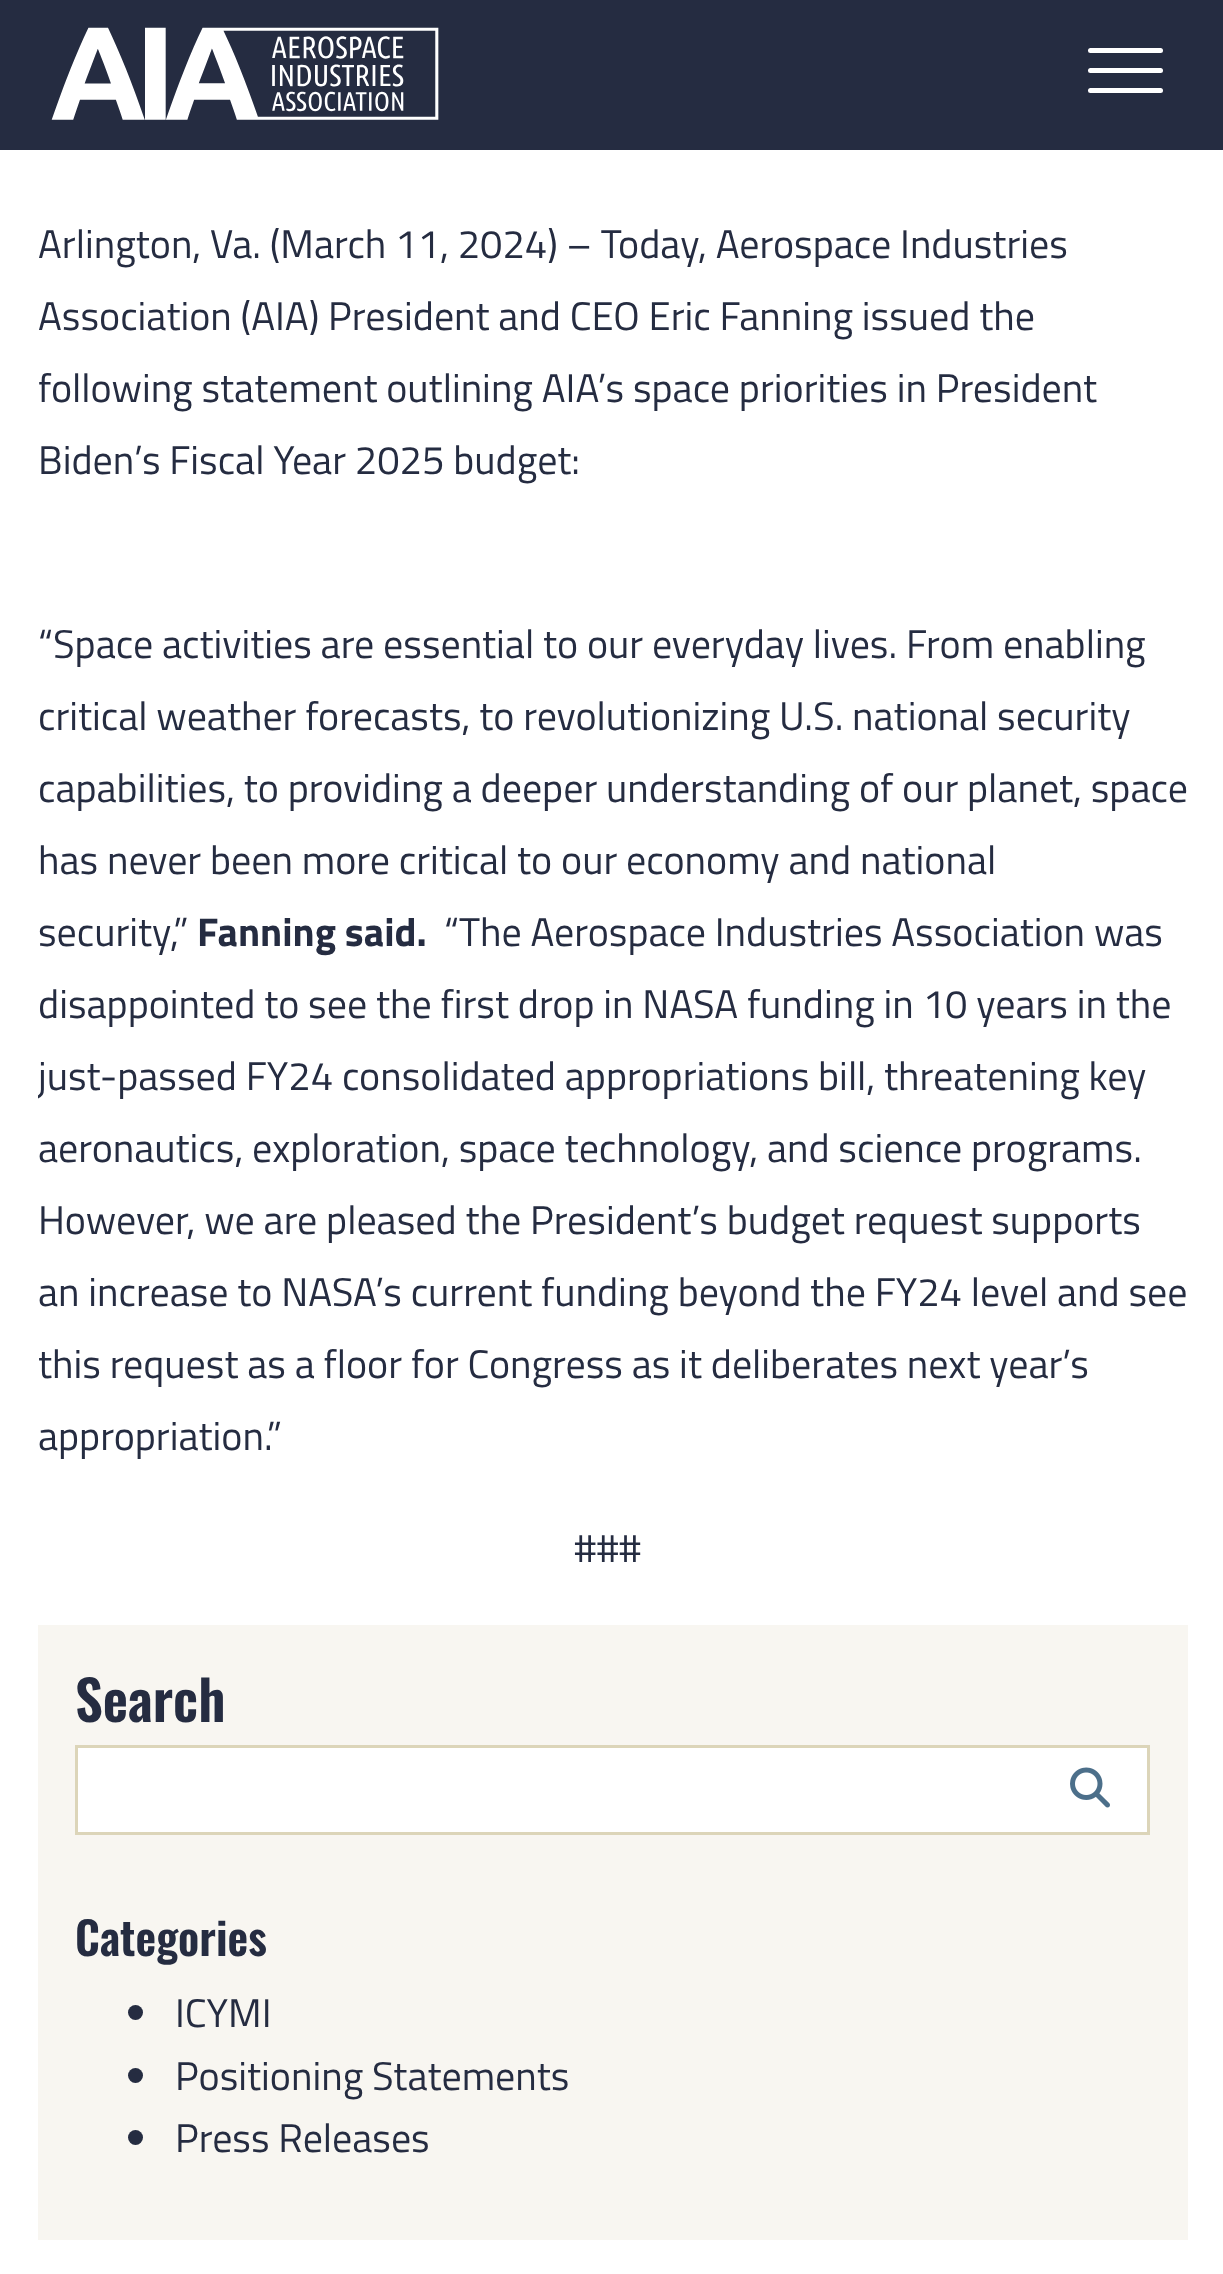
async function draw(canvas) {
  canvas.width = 1223
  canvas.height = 2274
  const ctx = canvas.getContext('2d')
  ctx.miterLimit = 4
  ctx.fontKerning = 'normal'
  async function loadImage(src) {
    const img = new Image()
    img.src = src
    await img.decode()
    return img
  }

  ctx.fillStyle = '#fff'
  ctx.fillRect(0, 0, 1223, 2274)
  ctx.fillStyle = '#252c41'
  ctx.fillRect(0, 0, 1223, 150)
  ctx.drawImage(await loadImage('image0.png'), 51, 27, 388, 93)
  ctx.fillStyle = '#fff'
  ctx.beginPath()
  ctx.roundRect(1088, 48, 75, 5, 2.5)
  ctx.fill()
  ctx.beginPath()
  ctx.roundRect(1088, 68, 75, 5, 2.5)
  ctx.fill()
  ctx.beginPath()
  ctx.roundRect(1088, 88, 75, 5, 2.5)
  ctx.fill()
  ctx.font = '40px Titillium Web'
  ctx.fillStyle = '#252c41'
  ctx.fillText('Arlington, Va. (March 11, 2024) – Today, Aerospace Industries', 38, 258)
  ctx.fillText('Association (AIA) President and CEO Eric Fanning issued the', 38, 330)
  ctx.fillText('following statement outlining AIA’s space priorities in President', 38, 402)
  ctx.fillText('Biden’s Fiscal Year 2025 budget:', 38, 474)
  ctx.fillText('“Space activities are essential to our everyday lives. From enabling', 38, 658)
  ctx.fillText('critical weather forecasts, to revolutionizing U.S. national security', 38, 730)
  ctx.fillText('capabilities, to providing a deeper understanding of our planet, space', 38, 802)
  ctx.fillText('has never been more critical to our economy and national', 38, 874)
  ctx.fillText('security,”', 38, 946)
  ctx.font = 'bold 40px Titillium Web'
  ctx.fillText('Fanning said.', 197, 946)
  ctx.font = '40px Titillium Web'
  ctx.fillText('“The Aerospace Industries Association was', 444, 946)
  ctx.fillText('disappointed to see the first drop in NASA funding in 10 years in the', 38, 1018)
  ctx.save()
  ctx.beginPath()
  ctx.rect(38, 168, 1150, 1457)
  ctx.clip()
  ctx.fillText('just-passed FY24 consolidated appropriations bill, threatening key', 38, 1090)
  ctx.restore()
  ctx.fillText('aeronautics, exploration, space technology, and science programs.', 38, 1162)
  ctx.fillText('However, we are pleased the President’s budget request supports', 38, 1234)
  ctx.fillText('an increase to NASA’s current funding beyond the FY24 level and see', 38, 1306)
  ctx.fillText('this request as a floor for Congress as it deliberates next year’s', 38, 1378)
  ctx.fillText('appropriation.”', 38, 1450)
  ctx.fillText('###', 574, 1562)
  ctx.fillStyle = '#f8f6f1'
  ctx.fillRect(38, 1625, 1150, 615)
  ctx.font = '600 55px Oswald'
  ctx.fillStyle = '#252c41'
  ctx.fillText('Search', 75, 1722)
  ctx.fillStyle = '#fff'
  ctx.beginPath()
  ctx.rect(76.5, 1746.5, 1072, 87)
  ctx.fill()
  ctx.strokeStyle = '#dcd5b9'
  ctx.lineWidth = 3
  ctx.stroke()
  ctx.drawImage(await loadImage('image1.png'), 1070, 1767, 40, 41)
  ctx.font = '600 45px Oswald'
  ctx.fillStyle = '#252c41'
  ctx.fillText('Categories', 75, 1956)
  ctx.beginPath()
  ctx.arc(135.5, 2012.5, 7.5, 0, 2 * Math.PI)
  ctx.fill()
  ctx.font = '40px Titillium Web'
  ctx.fillText('ICYMI', 175, 2027)
  ctx.beginPath()
  ctx.arc(135.5, 2075.5, 7.5, 0, 2 * Math.PI)
  ctx.fill()
  ctx.fillText('Positioning Statements', 175, 2090)
  ctx.beginPath()
  ctx.arc(135.5, 2137.5, 7.5, 0, 2 * Math.PI)
  ctx.fill()
  ctx.fillText('Press Releases', 175, 2152)
}

draw(document.querySelector('canvas'))
